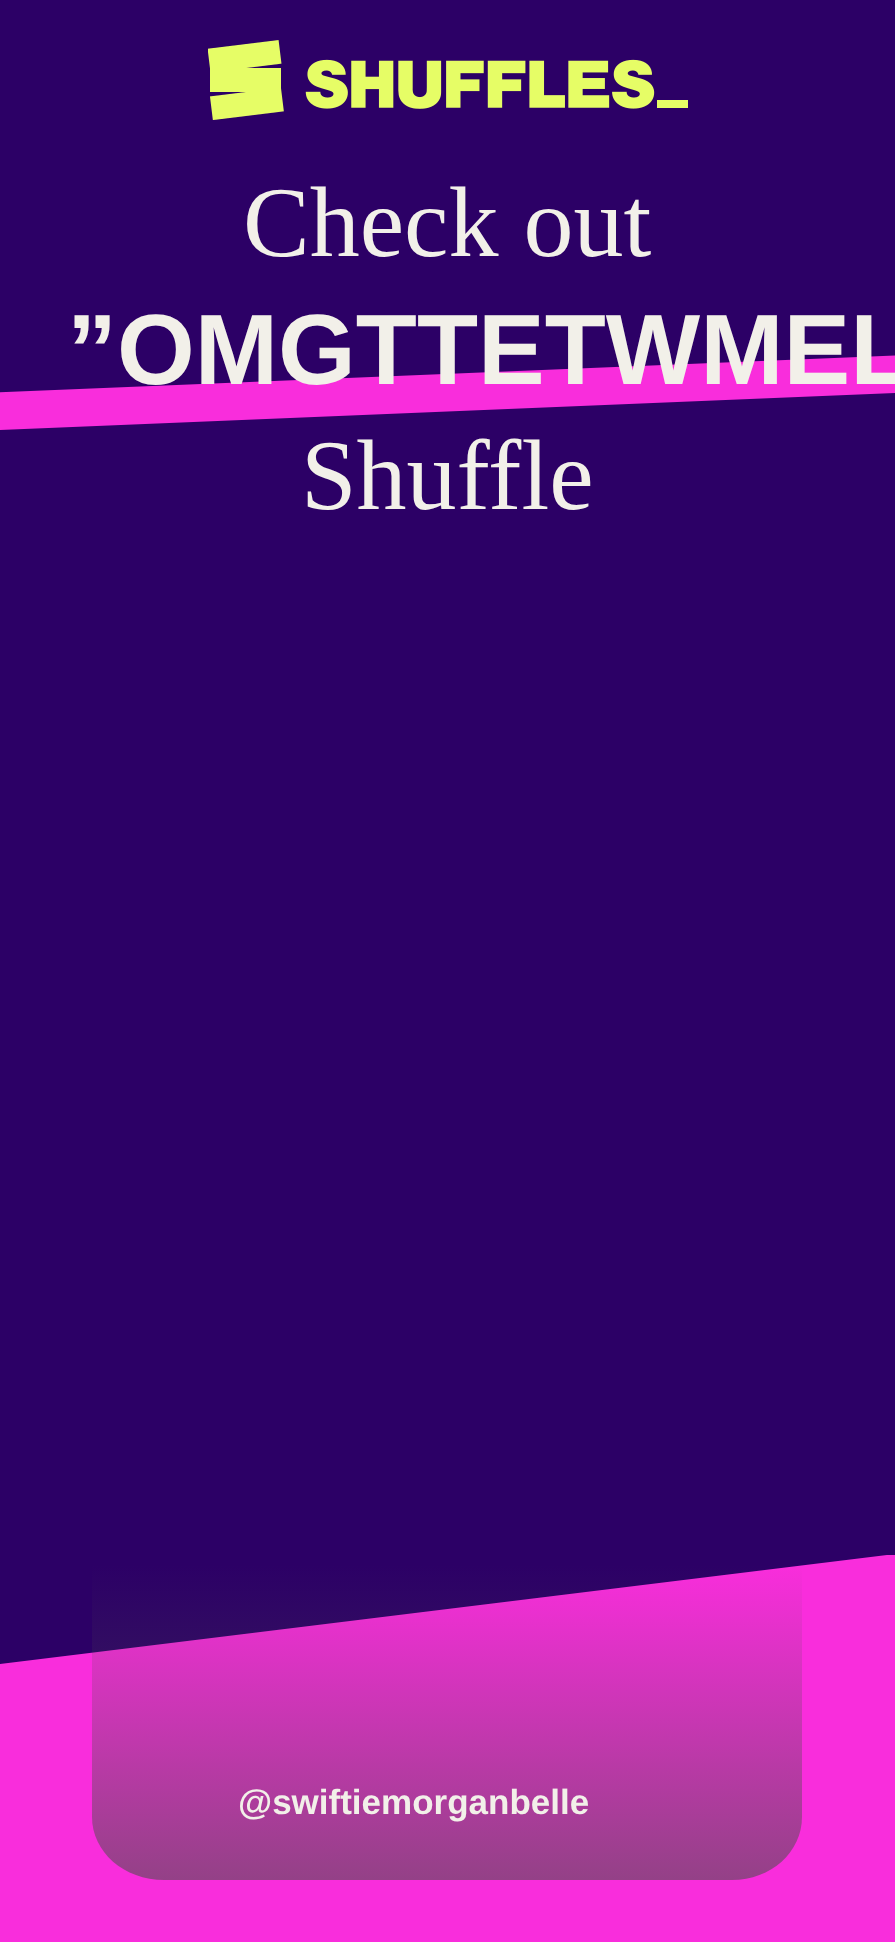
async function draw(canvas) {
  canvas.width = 895
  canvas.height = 1942
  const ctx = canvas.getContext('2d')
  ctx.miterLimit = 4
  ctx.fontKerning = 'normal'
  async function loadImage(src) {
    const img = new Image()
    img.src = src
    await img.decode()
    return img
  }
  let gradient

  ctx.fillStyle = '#2c0066'
  ctx.fillRect(0, 0, 895, 1942)
  ctx.drawImage(await loadImage('image0.png'), 208, 40, 480, 80)
  ctx.font = '100px Liberation Serif'
  ctx.fillStyle = '#f2f0e9'
  ctx.fillText('Check out', 243, 256)
  ctx.fillStyle = '#f92ddc'
  ctx.beginPath()
  ctx.moveTo(-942, 431)
  ctx.lineTo(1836, 317)
  ctx.lineTo(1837, 354)
  ctx.lineTo(-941, 469)
  ctx.closePath()
  ctx.fill()
  ctx.font = 'bold 100px Liberation Sans'
  ctx.fillStyle = '#f2f0e9'
  ctx.fillText('”OMGTTETWMEL', 67, 384)
  ctx.font = '100px Liberation Serif'
  ctx.fillText('Shuffle', 301, 509)
  ctx.save()
  ctx.beginPath()
  ctx.rect(0, 1555, 895, 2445)
  ctx.clip()
  ctx.fillStyle = '#f92ddc'
  ctx.beginPath()
  ctx.moveTo(0, 1664)
  ctx.lineTo(895, 1554)
  ctx.lineTo(895, 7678)
  ctx.lineTo(0, 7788)
  ctx.closePath()
  ctx.fill()
  ctx.restore()
  gradient = ctx.createLinearGradient(448, 1880, 448, 620)
  gradient.addColorStop(0, '#504e4e99')
  gradient.addColorStop(0.25, '#504e4e00')
  ctx.fillStyle = gradient
  ctx.beginPath()
  ctx.moveTo(164, 620)
  ctx.lineTo(732, 620)
  ctx.bezierCurveTo(771, 620, 802, 648, 802, 683)
  ctx.lineTo(802, 1817)
  ctx.bezierCurveTo(802, 1852, 771, 1880, 732, 1880)
  ctx.lineTo(164, 1880)
  ctx.bezierCurveTo(124, 1880, 92, 1852, 92, 1817)
  ctx.lineTo(92, 683)
  ctx.bezierCurveTo(92, 648, 124, 620, 164, 620)
  ctx.closePath()
  ctx.fill()
  ctx.font = 'bold 35px Liberation Sans'
  ctx.fillStyle = '#f2f0e9'
  ctx.fillText('@swiftiemorganbelle', 238, 1814)
}

draw(document.querySelector('canvas'))
